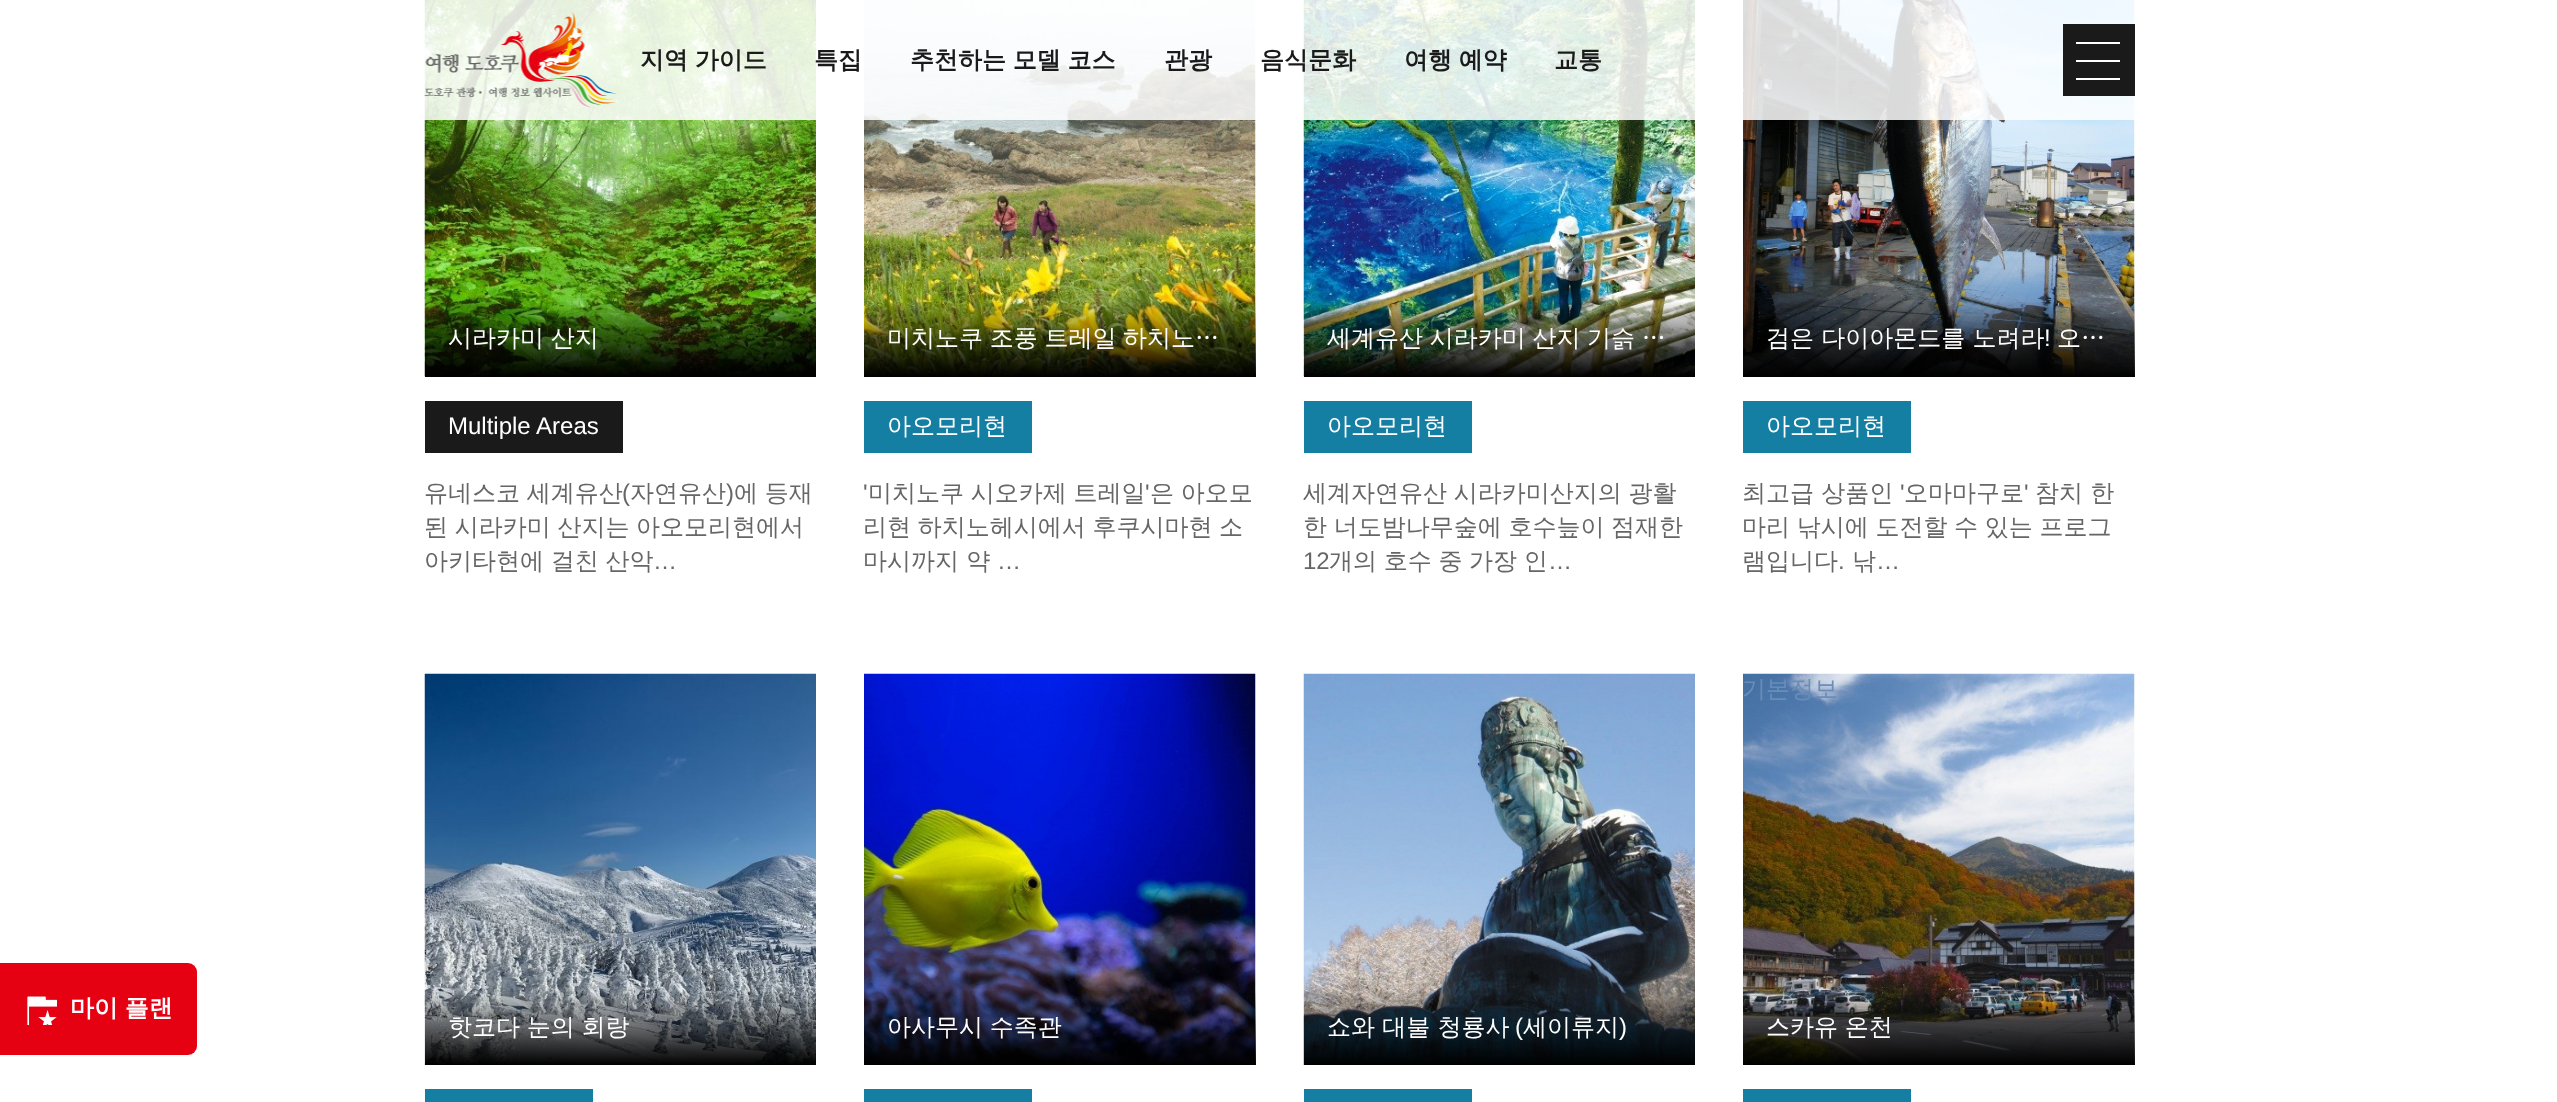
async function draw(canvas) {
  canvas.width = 2557
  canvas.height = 1102
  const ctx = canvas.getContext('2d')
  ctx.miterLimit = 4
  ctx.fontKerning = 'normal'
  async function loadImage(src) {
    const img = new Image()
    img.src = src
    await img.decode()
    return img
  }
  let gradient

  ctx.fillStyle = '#fff'
  ctx.fillRect(0, 0, 2557, 1102)
  ctx.drawImage(await loadImage('image2.png'), 424, 0, 392, 377)
  ctx.drawImage(await loadImage('image3.png'), 864, 0, 392, 377)
  ctx.drawImage(await loadImage('image4.png'), 1303, 0, 392, 377)
  ctx.drawImage(await loadImage('image5.png'), 1743, 0, 392, 377)
  ctx.fillStyle = '#ffffffd9'
  ctx.fillRect(424, 0, 1711, 120)
  ctx.drawImage(await loadImage('image0.png'), 424, 12, 193, 96)
  ctx.fillStyle = '#1a1a1a'
  ctx.fillRect(2063, 24, 72, 72)
  ctx.fillStyle = '#fff'
  ctx.fillRect(2076, 42, 44, 2)
  ctx.fillRect(2076, 60, 44, 2)
  ctx.fillRect(2076, 78, 44, 2)
  ctx.wordSpacing = '-0.5px'
  ctx.font = 'bold 24px WenQuanYi Zen Hei'
  ctx.fillStyle = '#1a1a1a'
  ctx.fillText('지역 가이드', 640, 68)
  ctx.wordSpacing = '0px'
  ctx.fillText('특집', 814, 68)
  ctx.wordSpacing = '-0.5px'
  ctx.fillText('추천하는 모델 코스', 910, 68)
  ctx.wordSpacing = '0px'
  ctx.fillText('관광', 1164, 68)
  ctx.fillText('음식문화', 1260, 68)
  ctx.wordSpacing = '-0.5px'
  ctx.fillText('여행 예약', 1404, 68)
  ctx.wordSpacing = '0px'
  ctx.fillText('교통', 1554, 68)
  ctx.fillStyle = '#e50012'
  ctx.beginPath()
  ctx.roundRect(0, 963, 197, 92, [0, 9, 9, 0])
  ctx.fill()
  ctx.drawImage(await loadImage('image1.png'), 27, 996, 30, 29)
  ctx.wordSpacing = '-0.5px'
  ctx.fillStyle = '#fff'
  ctx.fillText('마이 플랜', 70, 1016)
  gradient = ctx.createLinearGradient(620, 300, 620, 377)
  gradient.addColorStop(0, '#00000000')
  gradient.addColorStop(1, '#000')
  ctx.fillStyle = gradient
  ctx.fillRect(425, 302, 391, 75)
  ctx.font = '500 24px WenQuanYi Zen Hei'
  ctx.fillStyle = '#fff'
  ctx.fillText('시라카미 산지', 448, 346)
  ctx.fillStyle = '#1a1a1a'
  ctx.fillRect(425, 401, 198, 52)
  ctx.wordSpacing = '0px'
  ctx.font = '24px Liberation Sans'
  ctx.fillStyle = '#fff'
  ctx.fillText('Multiple Areas', 448, 434)
  ctx.wordSpacing = '-0.5px'
  ctx.font = '500 24px WenQuanYi Zen Hei'
  ctx.fillStyle = '#666'
  ctx.fillText('유네스코 세계유산', 424, 501)
  ctx.wordSpacing = '0px'
  ctx.font = '24px Liberation Sans'
  ctx.fillText('(', 622, 501)
  ctx.font = '500 24px WenQuanYi Zen Hei'
  ctx.fillText('자연유산', 630, 501)
  ctx.font = '24px Liberation Sans'
  ctx.fillText(')', 726, 501)
  ctx.wordSpacing = '-0.5px'
  ctx.font = '500 24px WenQuanYi Zen Hei'
  ctx.fillText('에 등재', 734, 501)
  ctx.fillText('된 시라카미 산지는 아오모리현에서', 424, 535)
  ctx.fillText('아키타현에 걸친 산악', 424, 569)
  ctx.wordSpacing = '0px'
  ctx.font = '24px Liberation Sans'
  ctx.fillText('…', 653, 569)
  gradient = ctx.createLinearGradient(1060, 300, 1060, 377)
  gradient.addColorStop(0, '#00000000')
  gradient.addColorStop(1, '#000')
  ctx.fillStyle = gradient
  ctx.fillRect(864, 302, 392, 75)
  ctx.wordSpacing = '-0.5px'
  ctx.font = '500 24px WenQuanYi Zen Hei'
  ctx.fillStyle = '#fff'
  ctx.fillText('미치노쿠 조풍 트레일 하치노…', 887, 346)
  ctx.fillStyle = '#147fa3'
  ctx.fillRect(864, 401, 168, 52)
  ctx.wordSpacing = '0px'
  ctx.fillStyle = '#fff'
  ctx.fillText('아오모리현', 887, 434)
  ctx.font = '24px Liberation Sans'
  ctx.fillStyle = '#666'
  ctx.fillText('\'', 863, 501)
  ctx.wordSpacing = '-0.5px'
  ctx.font = '500 24px WenQuanYi Zen Hei'
  ctx.fillText('미치노쿠 시오카제 트레일', 868, 501)
  ctx.wordSpacing = '0px'
  ctx.font = '24px Liberation Sans'
  ctx.fillText('\'', 1145, 501)
  ctx.wordSpacing = '-0.5px'
  ctx.font = '500 24px WenQuanYi Zen Hei'
  ctx.fillText('은 아오모', 1150, 501)
  ctx.fillText('리현 하치노헤시에서 후쿠시마현 소', 863, 535)
  ctx.wordSpacing = '0px'
  ctx.fillText('마시까지 약', 863, 569)
  ctx.font = '24px Liberation Sans'
  ctx.fillText('…', 997, 569)
  gradient = ctx.createLinearGradient(1499, 300, 1499, 377)
  gradient.addColorStop(0, '#00000000')
  gradient.addColorStop(1, '#000')
  ctx.fillStyle = gradient
  ctx.fillRect(1304, 302, 391, 75)
  ctx.wordSpacing = '-0.5px'
  ctx.font = '500 24px WenQuanYi Zen Hei'
  ctx.fillStyle = '#fff'
  ctx.fillText('세계유산 시라카미 산지 기슭 …', 1327, 346)
  ctx.fillStyle = '#147fa3'
  ctx.fillRect(1304, 401, 168, 52)
  ctx.wordSpacing = '0px'
  ctx.fillStyle = '#fff'
  ctx.fillText('아오모리현', 1327, 434)
  ctx.wordSpacing = '-0.5px'
  ctx.fillStyle = '#666'
  ctx.fillText('세계자연유산 시라카미산지의 광활', 1303, 501)
  ctx.fillText('한 너도밤나무숲에 호수늪이 점재한', 1303, 535)
  ctx.wordSpacing = '0px'
  ctx.font = '24px Liberation Sans'
  ctx.fillText('12', 1303, 569)
  ctx.wordSpacing = '-0.5px'
  ctx.font = '500 24px WenQuanYi Zen Hei'
  ctx.fillText('개의 호수 중 가장 인', 1329, 569)
  ctx.wordSpacing = '0px'
  ctx.font = '24px Liberation Sans'
  ctx.fillText('…', 1548, 569)
  gradient = ctx.createLinearGradient(1939, 300, 1939, 377)
  gradient.addColorStop(0, '#00000000')
  gradient.addColorStop(1, '#000')
  ctx.fillStyle = gradient
  ctx.fillRect(1743, 302, 392, 75)
  ctx.font = '500 24px WenQuanYi Zen Hei'
  ctx.fillStyle = '#fff'
  ctx.fillText('검은 다이아몬드를 노려라', 1766, 346)
  ctx.font = '24px Liberation Sans'
  ctx.fillText('!', 2044, 346)
  ctx.font = '500 24px WenQuanYi Zen Hei'
  ctx.fillText('오…', 2057, 346)
  ctx.fillStyle = '#147fa3'
  ctx.fillRect(1743, 401, 168, 52)
  ctx.fillStyle = '#fff'
  ctx.fillText('아오모리현', 1766, 434)
  ctx.fillStyle = '#666'
  ctx.fillText('최고급 상품인', 1742, 501)
  ctx.font = '24px Liberation Sans'
  ctx.fillText('\'', 1900, 501)
  ctx.font = '500 24px WenQuanYi Zen Hei'
  ctx.fillText('오마마구로', 1904, 501)
  ctx.font = '24px Liberation Sans'
  ctx.fillText('\'', 2024, 501)
  ctx.font = '500 24px WenQuanYi Zen Hei'
  ctx.fillText('참치 한', 2035, 501)
  ctx.wordSpacing = '-0.5px'
  ctx.fillText('마리 낚시에 도전할 수 있는 프로그', 1742, 535)
  ctx.wordSpacing = '0px'
  ctx.fillText('램입니다', 1742, 569)
  ctx.font = '24px Liberation Sans'
  ctx.fillText('.', 1838, 569)
  ctx.font = '500 24px WenQuanYi Zen Hei'
  ctx.fillText('낚', 1852, 569)
  ctx.font = '24px Liberation Sans'
  ctx.fillText('…', 1876, 569)
  ctx.drawImage(await loadImage('image6.png'), 424, 673, 392, 392)
  ctx.wordSpacing = '-0.5px'
  ctx.font = '500 24px WenQuanYi Zen Hei'
  ctx.fillStyle = '#fff'
  ctx.fillText('핫코다 눈의 회랑', 448, 1035)
  ctx.fillStyle = '#147fa3'
  ctx.fillRect(425, 1089, 168, 13)
  ctx.drawImage(await loadImage('image7.png'), 864, 673, 392, 392)
  gradient = ctx.createLinearGradient(1060, 989, 1060, 1065)
  gradient.addColorStop(0, '#00000000')
  gradient.addColorStop(1, '#000')
  ctx.fillStyle = gradient
  ctx.fillRect(864, 991, 392, 74)
  ctx.fillStyle = '#fff'
  ctx.fillText('아사무시 수족관', 887, 1035)
  ctx.fillStyle = '#147fa3'
  ctx.fillRect(864, 1089, 168, 13)
  ctx.drawImage(await loadImage('image8.png'), 1303, 673, 392, 392)
  ctx.wordSpacing = '0px'
  ctx.fillStyle = '#fff'
  ctx.fillText('쇼와 대불 청룡사', 1327, 1035)
  ctx.font = '24px Liberation Sans'
  ctx.fillText('(', 1515, 1035)
  ctx.font = '500 24px WenQuanYi Zen Hei'
  ctx.fillText('세이류지', 1523, 1035)
  ctx.font = '24px Liberation Sans'
  ctx.fillText(')', 1619, 1035)
  ctx.fillStyle = '#147fa3'
  ctx.fillRect(1304, 1089, 168, 13)
  ctx.drawImage(await loadImage('image9.png'), 1743, 673, 392, 392)
  ctx.wordSpacing = '-0.5px'
  ctx.font = '500 24px WenQuanYi Zen Hei'
  ctx.fillStyle = '#6a8db8'
  ctx.fillText('기본정보', 1742, 697)
  ctx.fillStyle = '#147fa3'
  ctx.fillRect(1743, 1089, 168, 13)
  gradient = ctx.createLinearGradient(1939, 989, 1939, 1065)
  gradient.addColorStop(0, '#00000000')
  gradient.addColorStop(1, '#000')
  ctx.fillStyle = gradient
  ctx.fillRect(1743, 991, 392, 74)
  ctx.fillStyle = '#fff'
  ctx.fillText('스카유 온천', 1766, 1035)
}

draw(document.querySelector('canvas'))
